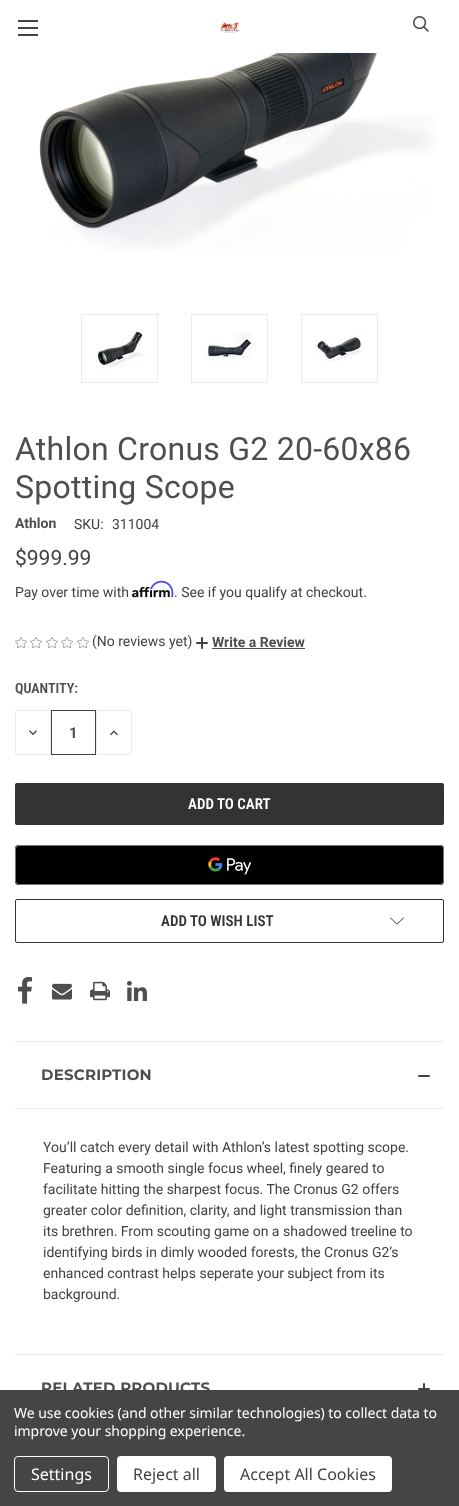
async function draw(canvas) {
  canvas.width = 459
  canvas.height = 1506
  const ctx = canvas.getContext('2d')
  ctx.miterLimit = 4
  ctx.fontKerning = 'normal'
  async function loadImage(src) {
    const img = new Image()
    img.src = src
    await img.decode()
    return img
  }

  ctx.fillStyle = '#fff'
  ctx.fillRect(0, 0, 459, 1506)
  ctx.fillStyle = '#424242'
  ctx.fillRect(18, 27, 20, 2)
  ctx.fillRect(18, 20, 20, 2)
  ctx.fillRect(18, 34, 20, 2)
  ctx.drawImage(await loadImage('image0.png'), 220, 22, 20, 11)
  ctx.drawImage(await loadImage('image1.png'), 413, 16, 16, 16)
  ctx.drawImage(await loadImage('image2.png'), 37, 53, 399, 198)
  ctx.strokeStyle = '#ebebeb'
  ctx.strokeRect(81.5, 314.5, 76, 68)
  ctx.drawImage(await loadImage('image3.png'), 95, 331, 50, 40)
  ctx.strokeRect(191.5, 314.5, 76, 68)
  ctx.drawImage(await loadImage('image4.png'), 205, 332, 49, 31)
  ctx.strokeRect(301.5, 314.5, 76, 68)
  ctx.drawImage(await loadImage('image5.png'), 315, 332, 47, 31)
  ctx.letterSpacing = '0.25px'
  ctx.font = '32px Roboto'
  ctx.fillStyle = '#4e4e4e'
  ctx.fillText('Athlon Cronus G2 20-60x86', 15, 460)
  ctx.fillText('Spotting Scope', 15, 498)
  ctx.letterSpacing = '0px'
  ctx.font = 'bold 14px Roboto'
  ctx.fillText('Athlon', 15, 528)
  ctx.font = '14px Roboto'
  ctx.fillStyle = '#424242'
  ctx.fillText('SKU:', 74, 529)
  ctx.fillText('311004', 112, 529)
  ctx.font = '21px Roboto'
  ctx.fillText('$999.99', 15, 565)
  ctx.font = '14px Roboto'
  ctx.fillText('Pay over time with', 15, 597)
  ctx.drawImage(await loadImage('image7.png'), 132, 586, 38, 12)
  ctx.drawImage(await loadImage('image6.png'), 150, 580, 24, 18)
  ctx.fillText('. See if you qualify at checkout.', 174, 597)
  ctx.drawImage(await loadImage('image8.png'), 15, 637, 12, 11)
  ctx.drawImage(await loadImage('image8.png'), 30, 637, 12, 11)
  ctx.drawImage(await loadImage('image8.png'), 46, 637, 12, 11)
  ctx.drawImage(await loadImage('image8.png'), 61, 637, 12, 11)
  ctx.drawImage(await loadImage('image8.png'), 77, 637, 12, 11)
  ctx.fillText('(No reviews yet)', 92, 646)
  ctx.drawImage(await loadImage('image9.png'), 196, 637, 12, 12)
  ctx.font = 'bold 14px Roboto'
  ctx.fillStyle = '#4e4e4e'
  ctx.fillText('Write a Review', 212, 647)
  ctx.fillRect(212, 648, 93, 1)
  ctx.font = '600 14px Roboto Condensed'
  ctx.fillText('QUANTITY:', 15, 693)
  ctx.beginPath()
  ctx.roundRect(15.5, 710.5, 35, 44, 1.5)
  ctx.stroke()
  ctx.drawImage(await loadImage('image10.png'), 29, 730, 8, 5)
  ctx.strokeStyle = '#424242'
  ctx.strokeRect(51.5, 710.5, 44, 44)
  ctx.font = 'bold 15px Roboto'
  ctx.fillText('1', 69, 738)
  ctx.beginPath()
  ctx.roundRect(96.5, 710.5, 35, 44, 1.5)
  ctx.strokeStyle = '#ebebeb'
  ctx.stroke()
  ctx.drawImage(await loadImage('image11.png'), 110, 730, 8, 6)
  ctx.fillStyle = '#333'
  ctx.beginPath()
  ctx.roundRect(15, 783, 429, 42, 2)
  ctx.fill()
  ctx.font = '600 15px Roboto Condensed'
  ctx.fillStyle = '#fff'
  ctx.fillText('ADD TO CART', 188, 809)
  ctx.fillStyle = '#000'
  ctx.beginPath()
  ctx.roundRect(15, 845, 429, 40, 4)
  ctx.fill()
  ctx.drawImage(await loadImage('image12.png'), 208, 857, 43, 18)
  ctx.beginPath()
  ctx.roundRect(15.5, 845.5, 428, 39, 3.5)
  ctx.strokeStyle = '#757575'
  ctx.stroke()
  ctx.beginPath()
  ctx.roundRect(15.5, 899.5, 428, 43, 1.5)
  ctx.strokeStyle = '#333'
  ctx.stroke()
  ctx.fillStyle = '#333'
  ctx.fillText('ADD TO WISH LIST', 161, 926)
  ctx.drawImage(await loadImage('image13.png'), 390, 917, 14, 8)
  ctx.drawImage(await loadImage('image14.png'), 18, 977, 14, 27)
  ctx.drawImage(await loadImage('image15.png'), 52, 983, 20, 17)
  ctx.drawImage(await loadImage('image16.png'), 90, 981, 20, 20)
  ctx.drawImage(await loadImage('image17.png'), 127, 981, 20, 20)
  ctx.fillStyle = '#ebebeb'
  ctx.fillRect(15, 1041, 429, 1)
  ctx.fillRect(15, 1108, 429, 1)
  ctx.letterSpacing = '0.25px'
  ctx.font = 'bold 15px Montserrat'
  ctx.fillStyle = '#4e4e4e'
  ctx.fillText('DESCRIPTION', 41, 1080)
  ctx.drawImage(await loadImage('image18.png'), 418, 1075, 12, 2)
  ctx.letterSpacing = '0px'
  ctx.font = '14px Roboto'
  ctx.fillStyle = '#424242'
  ctx.fillText('You’ll catch every detail with Athlon’s latest spotting scope.', 43, 1152)
  ctx.fillText('Featuring a smooth single focus wheel, finely geared to', 43, 1173)
  ctx.fillText('facilitate hitting the sharpest focus. The Cronus G2 offers', 43, 1194)
  ctx.fillText('greater color definition, clarity, and light transmission than', 43, 1215)
  ctx.fillText('its brethren. From scouting game on a shadowed treeline to', 43, 1236)
  ctx.fillText('identifying birds in dimly wooded forests, the Cronus G2’s', 43, 1257)
  ctx.fillText('enhanced contrast helps seperate your subject from its', 43, 1278)
  ctx.fillText('background.', 43, 1299)
  ctx.fillStyle = '#ebebeb'
  ctx.fillRect(15, 1354, 429, 1)
  ctx.letterSpacing = '0.25px'
  ctx.font = 'bold 15px Montserrat'
  ctx.fillStyle = '#4e4e4e'
  ctx.fillText('RELATED PRODUCTS', 41, 1393)
  ctx.drawImage(await loadImage('image19.png'), 418, 1383, 12, 7)
  ctx.fillStyle = '#454545'
  ctx.fillRect(0, 1390, 459, 116)
  ctx.letterSpacing = '-0.05px'
  ctx.font = '14px Noto Sans'
  ctx.fillStyle = '#fff'
  ctx.fillText('We use cookies (and other similar technologies) to collect data to', 14, 1418)
  ctx.fillText('improve your shopping experience.', 14, 1436)
  ctx.beginPath()
  ctx.roundRect(14.5, 1456.5, 94, 35, 3.5)
  ctx.strokeStyle = '#fff'
  ctx.stroke()
  ctx.letterSpacing = '0px'
  ctx.font = '16px Noto Sans'
  ctx.fillText('Settings', 31, 1480)
  ctx.beginPath()
  ctx.roundRect(117, 1456, 99, 36, 4)
  ctx.fill()
  ctx.fillStyle = '#424242'
  ctx.fillText('Reject all', 133, 1480)
  ctx.fillStyle = '#fff'
  ctx.beginPath()
  ctx.roundRect(224, 1456, 168, 36, 4)
  ctx.fill()
  ctx.fillStyle = '#424242'
  ctx.fillText('Accept All Cookies', 240, 1480)
}

draw(document.querySelector('canvas'))
